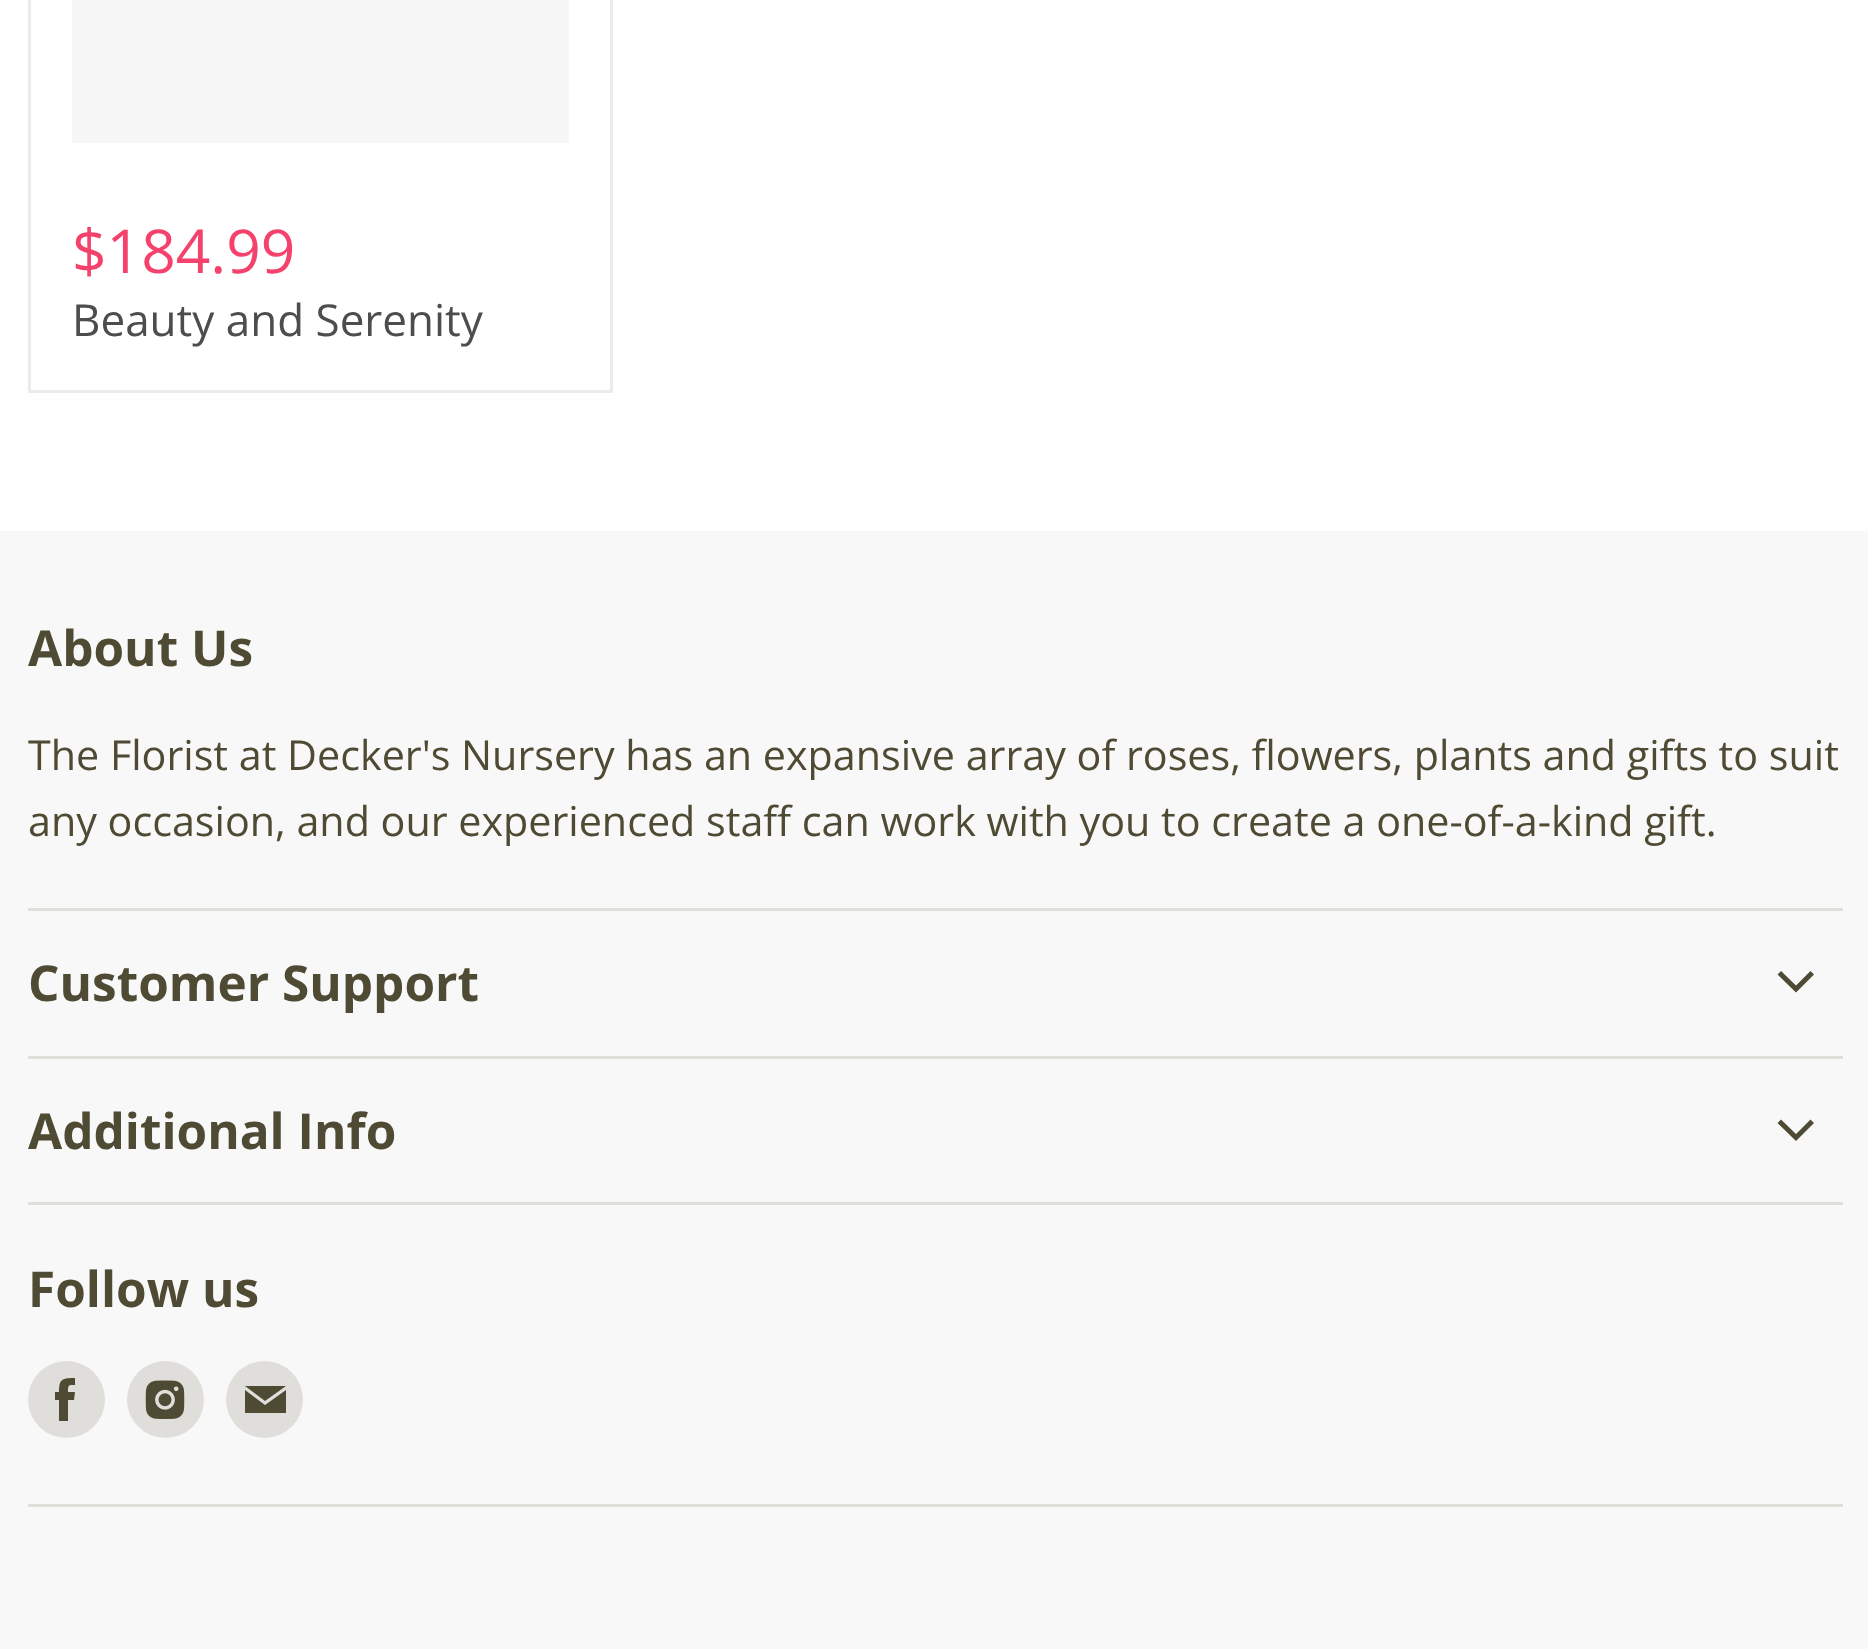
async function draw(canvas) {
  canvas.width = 1868
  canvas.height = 1649
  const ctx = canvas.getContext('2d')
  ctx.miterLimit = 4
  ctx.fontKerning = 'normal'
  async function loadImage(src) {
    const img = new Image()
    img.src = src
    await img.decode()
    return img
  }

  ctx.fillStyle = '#fff'
  ctx.fillRect(0, 0, 1868, 1649)
  ctx.strokeStyle = '#ebebeb'
  ctx.lineWidth = 3
  ctx.strokeRect(29.5, -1.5, 582, 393)
  ctx.fillStyle = '#f7f7f7'
  ctx.fillRect(72, 0, 497, 143)
  ctx.font = '60.5px Open Sans'
  ctx.fillStyle = '#f5426c'
  ctx.fillText('$184.99', 72, 273)
  ctx.font = '44px Open Sans'
  ctx.fillStyle = '#4d4d4d'
  ctx.fillText('Beauty and Serenity', 72, 336)
  ctx.fillStyle = '#f8f8f8'
  ctx.fillRect(0, 531, 1868, 1118)
  ctx.fillStyle = '#dfdeda'
  ctx.fillRect(28, 908, 1815, 3)
  ctx.font = 'bold 49.5px Open Sans'
  ctx.fillStyle = '#4f4a33'
  ctx.fillText('About Us', 28, 666)
  ctx.font = '41.25px Open Sans'
  ctx.fillText('The Florist at Decker\'s Nursery has an expansive array of roses, flowers, plants and gifts to suit', 28, 770)
  ctx.fillText('any occasion, and our experienced staff can work with you to create a one-of-a-kind gift.', 28, 836)
  ctx.fillStyle = '#dfdeda'
  ctx.fillRect(28, 1056, 1815, 3)
  ctx.font = 'bold 49.5px Open Sans'
  ctx.fillStyle = '#4f4a33'
  ctx.fillText('Customer Support', 28, 1001)
  ctx.beginPath()
  ctx.moveTo(1796, 992.5)
  ctx.lineTo(1814, 974.5)
  ctx.lineTo(1810.5, 971)
  ctx.lineTo(1796, 985.5)
  ctx.closePath()
  ctx.moveTo(1796, 985.5)
  ctx.lineTo(1781, 971)
  ctx.lineTo(1777.5, 974.5)
  ctx.lineTo(1796, 992.5)
  ctx.closePath()
  ctx.fill('evenodd')
  ctx.fillStyle = '#dfdeda'
  ctx.fillRect(28, 1202, 1815, 3)
  ctx.fillStyle = '#4f4a33'
  ctx.fillText('Additional Info', 28, 1149)
  ctx.beginPath()
  ctx.moveTo(1796, 1141)
  ctx.lineTo(1814, 1123)
  ctx.lineTo(1810.5, 1119.5)
  ctx.lineTo(1796, 1134)
  ctx.closePath()
  ctx.moveTo(1796, 1134)
  ctx.lineTo(1781, 1119.5)
  ctx.lineTo(1777.5, 1123)
  ctx.lineTo(1796, 1141)
  ctx.closePath()
  ctx.fill('evenodd')
  ctx.fillStyle = '#dfdeda'
  ctx.fillRect(28, 1504, 1815, 3)
  ctx.fillStyle = '#4f4a33'
  ctx.fillText('Follow us', 28, 1307)
  ctx.fillStyle = '#dfdeda'
  ctx.beginPath()
  ctx.arc(66.5, 1399.5, 38.5, 0, 2 * Math.PI)
  ctx.fill()
  ctx.fillStyle = '#4f4a33'
  ctx.beginPath()
  ctx.moveTo(74, 1400)
  ctx.lineTo(68, 1400)
  ctx.lineTo(68, 1421)
  ctx.lineTo(59, 1421)
  ctx.lineTo(59, 1400)
  ctx.lineTo(55, 1400)
  ctx.lineTo(55, 1392)
  ctx.lineTo(59, 1392)
  ctx.bezierCurveTo(59, 1379, 62, 1378, 75, 1378)
  ctx.lineTo(75, 1385)
  ctx.bezierCurveTo(68, 1385, 68, 1385, 68, 1392)
  ctx.lineTo(75, 1392)
  ctx.closePath()
  ctx.fill('evenodd')
  ctx.fillStyle = '#dfdeda'
  ctx.beginPath()
  ctx.arc(165.5, 1399.5, 38.5, 0, 2 * Math.PI)
  ctx.fill()
  ctx.drawImage(await loadImage('image0.png'), 145, 1380, 40, 39)
  ctx.beginPath()
  ctx.arc(264.5, 1399.5, 38.5, 0, 2 * Math.PI)
  ctx.fill()
  ctx.fillStyle = '#4f4a33'
  ctx.beginPath()
  ctx.moveTo(286, 1386)
  ctx.lineTo(245, 1386)
  ctx.lineTo(265, 1401)
  ctx.closePath()
  ctx.moveTo(265, 1405)
  ctx.lineTo(245, 1390)
  ctx.lineTo(245, 1413)
  ctx.lineTo(286, 1413)
  ctx.lineTo(286, 1390)
  ctx.closePath()
  ctx.fill('evenodd')
}

draw(document.querySelector('canvas'))
